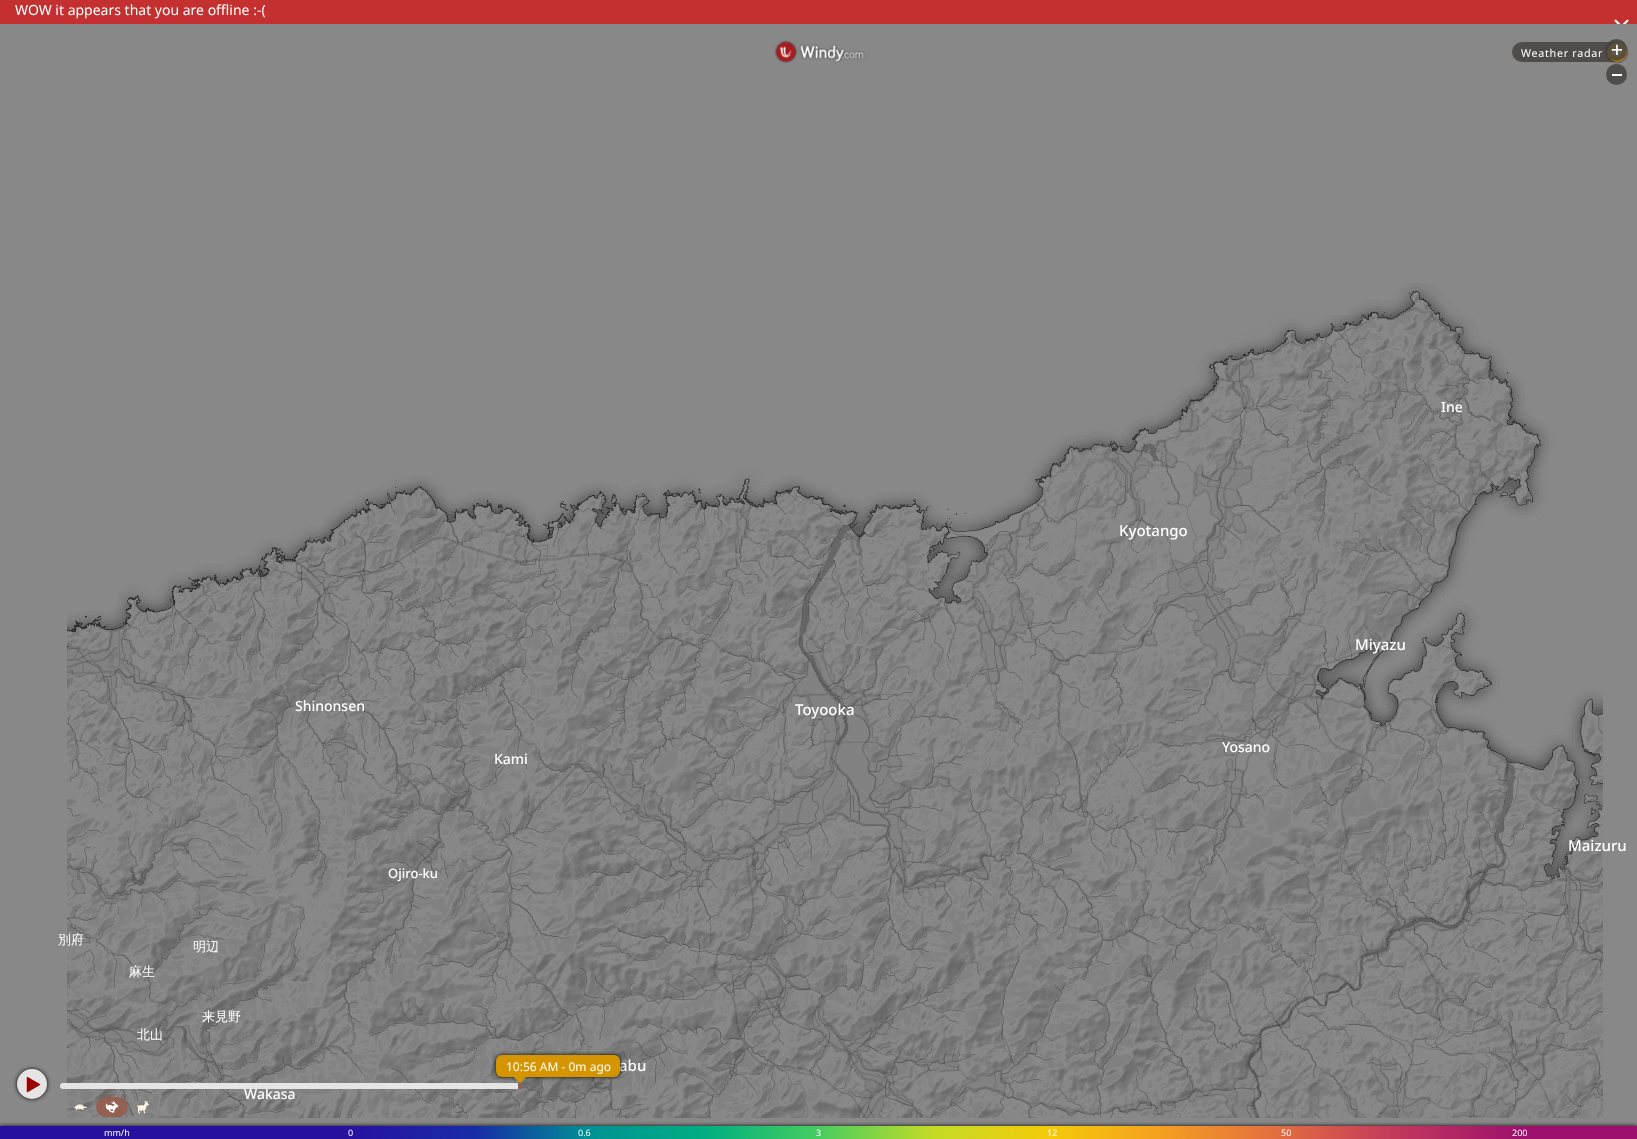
async function draw(canvas) {
  canvas.width = 1637
  canvas.height = 1139
  const ctx = canvas.getContext('2d')
  ctx.miterLimit = 4
  ctx.fontKerning = 'normal'
  async function loadImage(src) {
    const img = new Image()
    img.src = src
    await img.decode()
    return img
  }
  let gradient

  ctx.fillStyle = '#888'
  ctx.fillRect(0, 0, 1637, 1139)
  ctx.fillStyle = '#c42f2f'
  ctx.fillRect(0, 0, 1637, 24)
  ctx.font = '14px Noto Sans'
  ctx.fillStyle = '#fff'
  ctx.fillText('WOW it appears that you are offline :-(', 15, 15)
  ctx.drawImage(await loadImage('image0.png'), 1614, 19, 15, 5)
  ctx.drawImage(await loadImage('image1.png'), 774, 40, 24, 23)
  ctx.drawImage(await loadImage('image2.png'), 799, 44, 66, 19)
  ctx.fillStyle = '#4f4c4c'
  ctx.beginPath()
  ctx.roundRect(1512, 42, 115, 20, 10)
  ctx.fill()
  ctx.letterSpacing = '0.7px'
  ctx.font = '10.75px Noto Sans'
  ctx.fillStyle = '#fff'
  ctx.fillText('Weather radar', 1521, 57)
  ctx.fillStyle = '#000'
  ctx.filter = 'blur(1px)'
  ctx.beginPath()
  ctx.roundRect(1607, 42, 20, 20, 10)
  ctx.fill()
  ctx.filter = 'none'
  ctx.fillStyle = '#d49500'
  ctx.beginPath()
  ctx.arc(1617, 52, 10, 0, 2 * Math.PI)
  ctx.fill()
  ctx.drawImage(await loadImage('image3.png'), 1611, 50, 11, 7)
  ctx.fillStyle = '#444141d6'
  ctx.beginPath()
  ctx.roundRect(1606, 39, 21, 22, 10.5)
  ctx.fill()
  ctx.drawImage(await loadImage('image4.png'), 1611, 44, 12, 11)
  ctx.fillStyle = '#4f4c4c'
  ctx.beginPath()
  ctx.arc(1616.5, 74.5, 10.5, 0, 2 * Math.PI)
  ctx.fill()
  ctx.fillStyle = '#fff'
  ctx.fillRect(1612, 74, 10, 2)
  ctx.drawImage(await loadImage('image5.png'), 1225, 315, 122, 35)
  ctx.drawImage(await loadImage('image6.png'), 1347, 283, 147, 67)
  ctx.drawImage(await loadImage('image7.png'), 117, 525, 206, 81)
  ctx.drawImage(await loadImage('image8.png'), 323, 474, 256, 132)
  ctx.drawImage(await loadImage('image9.png'), 579, 469, 256, 137)
  ctx.drawImage(await loadImage('image10.png'), 835, 431, 256, 175)
  ctx.drawImage(await loadImage('image11.png'), 1091, 350, 256, 256)
  ctx.drawImage(await loadImage('image12.png'), 1347, 350, 208, 256)
  ctx.drawImage(await loadImage('image13.png'), 67, 606, 256, 256)
  ctx.drawImage(await loadImage('image14.png'), 323, 606, 256, 256)
  ctx.drawImage(await loadImage('image15.png'), 579, 606, 256, 256)
  ctx.drawImage(await loadImage('image16.png'), 835, 606, 256, 256)
  ctx.drawImage(await loadImage('image17.png'), 1091, 606, 256, 256)
  ctx.drawImage(await loadImage('image18.png'), 1347, 606, 256, 256)
  ctx.drawImage(await loadImage('image19.png'), 67, 862, 256, 256)
  ctx.drawImage(await loadImage('image20.png'), 323, 862, 256, 256)
  ctx.drawImage(await loadImage('image21.png'), 579, 862, 256, 256)
  ctx.drawImage(await loadImage('image22.png'), 835, 862, 256, 256)
  ctx.drawImage(await loadImage('image23.png'), 1091, 862, 256, 256)
  ctx.drawImage(await loadImage('image24.png'), 1347, 862, 256, 256)
  ctx.letterSpacing = '0px'
  ctx.font = '500 14px Noto Sans'
  ctx.fillText('Ine', 1441, 412)
  ctx.font = '500 15px Noto Sans'
  ctx.fillText('Kyotango', 1119, 536)
  ctx.font = '500 14px Noto Sans'
  ctx.fillText('Shinonsen', 295, 711)
  ctx.fillText('Kami', 494, 764)
  ctx.font = '500 15px Noto Sans'
  ctx.fillText('Toyooka', 795, 715)
  ctx.fillText('Miyazu', 1355, 650)
  ctx.fillText('Maizuru', 1568, 851)
  ctx.font = '500 14px Noto Sans'
  ctx.fillText('Yosano', 1222, 752)
  ctx.font = '500 13px Noto Sans'
  ctx.fillText('Ojiro-ku', 388, 878)
  ctx.font = '500 13px WenQuanYi Zen Hei'
  ctx.fillText('別府', 58, 944)
  ctx.fillText('明辺', 193, 951)
  ctx.fillText('麻生', 129, 976)
  ctx.fillText('来見野', 202, 1021)
  ctx.fillText('北山', 137, 1039)
  ctx.font = '500 14px Noto Sans'
  ctx.fillText('Wakasa', 244, 1099)
  ctx.font = '500 15px Noto Sans'
  ctx.fillText('abu', 619, 1071)
  ctx.fillStyle = '#000'
  ctx.filter = 'blur(2px)'
  ctx.beginPath()
  ctx.roundRect(17, 1069, 30, 30, 15)
  ctx.fill()
  ctx.filter = 'none'
  ctx.fillStyle = '#e5e5e5'
  ctx.beginPath()
  ctx.arc(32, 1084, 15, 0, 2 * Math.PI)
  ctx.fill()
  ctx.drawImage(await loadImage('image25.png'), 26, 1076, 15, 17)
  ctx.beginPath()
  ctx.roundRect(60, 1083, 460, 6, 3)
  ctx.fill()
  ctx.fillStyle = '#000'
  ctx.filter = 'blur(2px)'
  ctx.beginPath()
  ctx.roundRect(496, 1055, 124, 22, 6)
  ctx.fill()
  ctx.filter = 'none'
  ctx.fillStyle = '#d49500'
  ctx.beginPath()
  ctx.roundRect(496, 1055, 124, 22, 6)
  ctx.fill()
  ctx.font = '12px Noto Sans'
  ctx.fillStyle = '#fff'
  ctx.fillText('10:56 AM - 0m ago', 506, 1071)
  ctx.fillStyle = '#d49500'
  ctx.beginPath()
  ctx.moveTo(514, 1077)
  ctx.lineTo(526, 1077)
  ctx.lineTo(520, 1083)
  ctx.closePath()
  ctx.fill()
  ctx.fillStyle = '#946051'
  ctx.fillRect(518, 1083, 4, 6)
  ctx.drawImage(await loadImage('image26.png'), 73, 1104, 14, 6)
  ctx.beginPath()
  ctx.roundRect(96, 1097, 32, 20, 10)
  ctx.fill()
  ctx.drawImage(await loadImage('image27.png'), 105, 1101, 14, 13)
  ctx.drawImage(await loadImage('image28.png'), 137, 1101, 12, 13)
  ctx.fillStyle = '#000'
  ctx.filter = 'blur(2px)'
  ctx.beginPath()
  ctx.rect(0, 1126, 1637, 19)
  ctx.fill()
  ctx.filter = 'none'
  gradient = ctx.createLinearGradient(0, 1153, 1637, 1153)
  gradient.addColorStop(0, '#28109f')
  gradient.addColorStop(0.21, '#28109f')
  gradient.addColorStop(0.29, '#182ca8')
  gradient.addColorStop(0.36, '#009194')
  gradient.addColorStop(0.43, '#00ae81')
  gradient.addColorStop(0.5, '#46cd60')
  gradient.addColorStop(0.57, '#c3db26')
  gradient.addColorStop(0.64, '#f5cb08')
  gradient.addColorStop(0.71, '#f49f21')
  gradient.addColorStop(0.79, '#df6644')
  gradient.addColorStop(0.86, '#be345e')
  gradient.addColorStop(0.93, '#9d106d')
  gradient.addColorStop(1, '#9d106d')
  ctx.fillStyle = gradient
  ctx.fillRect(0, 1126, 1637, 13)
  ctx.font = '9px Noto Sans'
  ctx.fillStyle = '#fff'
  ctx.fillText('mm/h', 104, 1136)
  ctx.fillText('0', 348, 1136)
  ctx.fillText('0.6', 578, 1136)
  ctx.fillText('3', 816, 1136)
  ctx.fillText('12', 1047, 1136)
  ctx.fillText('50', 1281, 1136)
  ctx.fillText('200', 1512, 1136)
}

draw(document.querySelector('canvas'))
